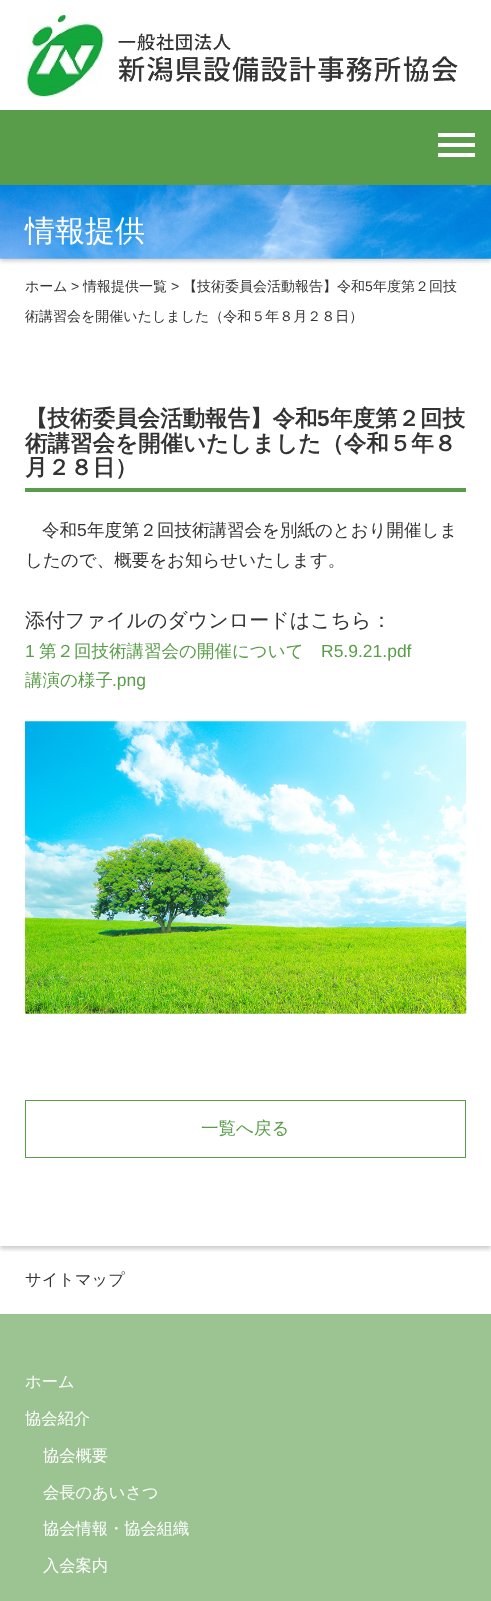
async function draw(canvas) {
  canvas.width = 491
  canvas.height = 1601
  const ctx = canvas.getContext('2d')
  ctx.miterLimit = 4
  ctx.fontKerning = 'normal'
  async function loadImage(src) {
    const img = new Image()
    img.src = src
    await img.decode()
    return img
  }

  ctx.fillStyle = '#fff'
  ctx.fillRect(0, 0, 491, 1601)
  ctx.drawImage(await loadImage('image0.png'), 27, 15, 431, 82)
  ctx.fillStyle = '#00000033'
  ctx.filter = 'blur(2px)'
  ctx.beginPath()
  ctx.rect(0, 188, 491, 73)
  ctx.fill()
  ctx.filter = 'none'
  ctx.fillStyle = '#599d4a'
  ctx.fillRect(0, 110, 491, 75)
  ctx.fillStyle = '#fff'
  ctx.fillRect(438, 133, 37, 4)
  ctx.fillRect(438, 143, 37, 4)
  ctx.fillRect(438, 153, 37, 4)
  ctx.drawImage(await loadImage('image1.png'), 0, 185, 491, 74)
  ctx.font = '500 30px WenQuanYi Zen Hei'
  ctx.fillText('情報提供', 25, 241)
  ctx.font = '500 14px WenQuanYi Zen Hei'
  ctx.fillStyle = '#333'
  ctx.fillText('ホーム', 25, 291)
  ctx.font = '14px Liberation Sans'
  ctx.fillText('>', 71, 291)
  ctx.font = '500 14px WenQuanYi Zen Hei'
  ctx.fillText('情報提供一覧', 83, 291)
  ctx.font = '14px Liberation Sans'
  ctx.fillText('>', 171, 291)
  ctx.font = '500 14px WenQuanYi Zen Hei'
  ctx.fillText('【技術委員会活動報告】令和', 183, 291)
  ctx.font = '14px Liberation Sans'
  ctx.fillText('5', 365, 291)
  ctx.font = '500 14px WenQuanYi Zen Hei'
  ctx.fillText('年度第２回技', 373, 291)
  ctx.fillText('術講習会を開催いたしました（令和５年８月２８日）', 25, 321)
  ctx.save()
  ctx.beginPath()
  ctx.rect(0, 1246, 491, 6)
  ctx.clip()
  ctx.fillStyle = '#00000033'
  ctx.filter = 'blur(2px)'
  ctx.beginPath()
  ctx.rect(0, 348, 491, 901)
  ctx.fill()
  ctx.filter = 'none'
  ctx.restore()
  ctx.fillStyle = '#599d4a'
  ctx.fillRect(25, 488, 441, 4)
  ctx.font = 'bold 22.5px WenQuanYi Zen Hei'
  ctx.fillStyle = '#333'
  ctx.fillText('【技術委員会活動報告】令和', 25, 426)
  ctx.font = 'bold 22.5px Liberation Sans'
  ctx.fillText('5', 317, 426)
  ctx.font = 'bold 22.5px WenQuanYi Zen Hei'
  ctx.fillText('年度第２回技', 330, 426)
  ctx.fillText('術講習会を開催いたしました（令和５年８', 25, 451)
  ctx.fillText('月２８日）', 25, 475)
  ctx.font = '500 17.5px WenQuanYi Zen Hei'
  ctx.fillText('令和', 42, 536)
  ctx.font = '17.5px Liberation Sans'
  ctx.fillText('5', 77, 536)
  ctx.font = '500 17.5px WenQuanYi Zen Hei'
  ctx.fillText('年度第２回技術講習会を別紙のとおり開催しま', 87, 536)
  ctx.fillText('したので、概要をお知らせいたします。', 25, 566)
  ctx.font = '500 20px WenQuanYi Zen Hei'
  ctx.fillText('添付ファイルのダウンロードはこちら：', 25, 627)
  ctx.font = '17.5px Liberation Sans'
  ctx.fillStyle = '#599d4a'
  ctx.fillText('1', 25, 657)
  ctx.font = '500 17.5px WenQuanYi Zen Hei'
  ctx.fillText('第２回技術講習会の開催について', 39, 657)
  ctx.font = '17.5px Liberation Sans'
  ctx.fillText('R5.9.21.pdf', 321, 657)
  ctx.font = '500 17.5px WenQuanYi Zen Hei'
  ctx.fillText('講演の様子', 25, 686)
  ctx.font = '17.5px Liberation Sans'
  ctx.fillText('.png', 112, 686)
  ctx.drawImage(await loadImage('image2.png'), 25, 721, 442, 293)
  ctx.strokeStyle = '#599d4a'
  ctx.strokeRect(25.5, 1100.5, 440, 57)
  ctx.font = '500 17.5px WenQuanYi Zen Hei'
  ctx.fillText('一覧へ戻る', 201, 1134)
  ctx.font = '500 16.25px WenQuanYi Zen Hei'
  ctx.fillStyle = '#333'
  ctx.fillText('サイトマップ', 25, 1285)
  ctx.fillStyle = '#9bc492'
  ctx.fillRect(0, 1314, 491, 287)
  ctx.fillStyle = '#fff'
  ctx.fillText('ホーム', 25, 1387)
  ctx.fillText('協会紹介', 25, 1424)
  ctx.fillText('協会概要', 43, 1461)
  ctx.fillText('会長のあいさつ', 43, 1498)
  ctx.fillText('協会情報・協会組織', 43, 1534)
  ctx.fillText('入会案内', 43, 1571)
}

draw(document.querySelector('canvas'))
